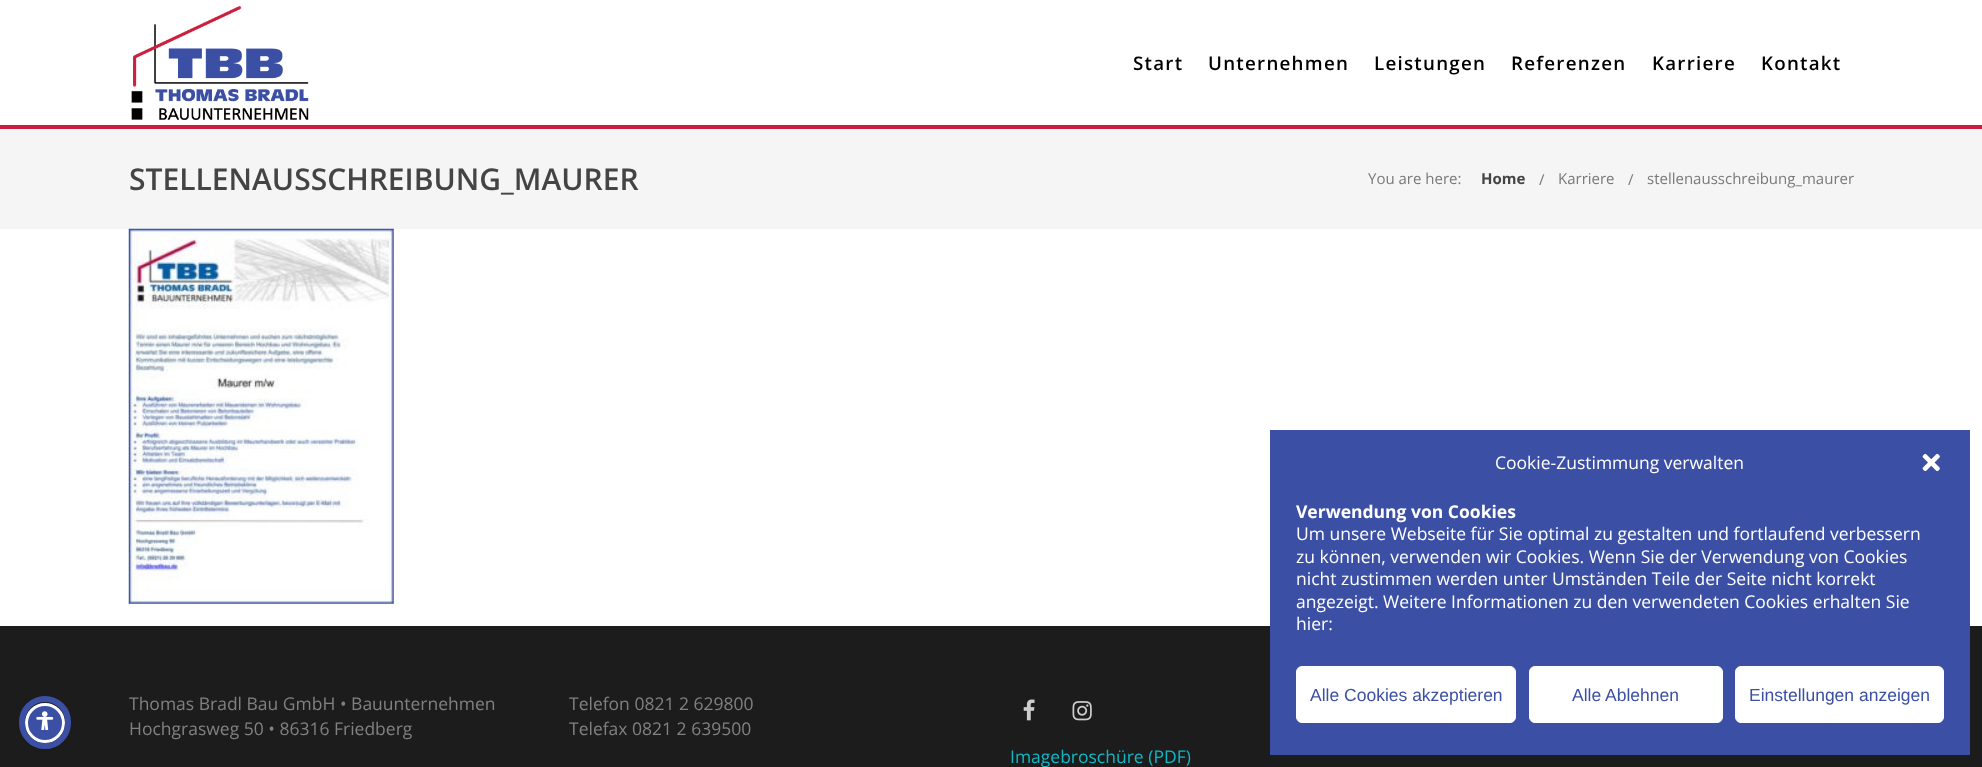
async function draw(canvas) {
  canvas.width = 1982
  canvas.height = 767
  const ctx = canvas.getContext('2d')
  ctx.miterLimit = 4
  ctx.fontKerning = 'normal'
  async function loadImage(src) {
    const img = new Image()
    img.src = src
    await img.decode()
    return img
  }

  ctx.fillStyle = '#fff'
  ctx.fillRect(0, 0, 1982, 767)
  ctx.fillStyle = '#cb1e3c'
  ctx.fillRect(0, 125, 1982, 4)
  ctx.drawImage(await loadImage('image0.png'), 131, 6, 178, 114)
  ctx.letterSpacing = '1.25px'
  ctx.font = '600 18.75px Open Sans'
  ctx.fillStyle = '#000'
  ctx.fillText('Start', 1133, 70)
  ctx.fillText('Unternehmen', 1208, 70)
  ctx.fillText('Leistungen', 1374, 70)
  ctx.fillText('Referenzen', 1511, 70)
  ctx.fillText('Karriere', 1652, 70)
  ctx.fillText('Kontakt', 1761, 70)
  ctx.fillStyle = '#f5f5f5'
  ctx.fillRect(0, 129, 1982, 100)
  ctx.letterSpacing = '0px'
  ctx.font = '600 30px Open Sans'
  ctx.fillStyle = '#444'
  ctx.fillText('STELLENAUSSCHREIBUNG_MAURER', 129, 190)
  ctx.font = '15px Open Sans'
  ctx.fillStyle = '#797979'
  ctx.fillText('You are here:', 1368, 184)
  ctx.font = 'bold 15px Open Sans'
  ctx.fillStyle = '#444'
  ctx.fillText('Home', 1481, 184)
  ctx.font = '15px Open Sans'
  ctx.fillStyle = '#797979'
  ctx.fillText('/', 1539, 185)
  ctx.fillText('Karriere', 1558, 184)
  ctx.fillText('/', 1628, 185)
  ctx.fillText('stellenausschreibung_maurer', 1647, 184)
  ctx.drawImage(await loadImage('image1.png'), 128, 228, 266, 376)
  ctx.fillStyle = '#1c1c1c'
  ctx.fillRect(0, 626, 1982, 141)
  ctx.font = '17.5px Open Sans'
  ctx.fillStyle = '#818181'
  ctx.fillText('Thomas Bradl Bau GmbH • Bauunternehmen', 129, 710)
  ctx.fillText('Hochgrasweg 50 • 86316 Friedberg', 129, 735)
  ctx.fillText('Telefon 0821 2 629800', 569, 710)
  ctx.fillText('Telefax 0821 2 639500', 569, 735)
  ctx.drawImage(await loadImage('image2.png'), 1023, 699, 12, 22)
  ctx.drawImage(await loadImage('image3.png'), 1072, 701, 20, 20)
  ctx.fillStyle = '#10b8c7'
  ctx.fillText('Imagebroschüre (PDF)', 1010, 763)
  ctx.fillStyle = '#3b50a5'
  ctx.fillRect(1270, 430, 700, 325)
  ctx.fillStyle = '#fff'
  ctx.fillText('Cookie-Zustimmung verwalten', 1495, 469)
  ctx.drawImage(await loadImage('image4.png'), 1922, 453, 18, 19)
  ctx.font = 'bold 17.5px Open Sans'
  ctx.fillText('Verwendung von Cookies', 1296, 518)
  ctx.font = '17.5px Open Sans'
  ctx.fillText('Um unsere Webseite für Sie optimal zu gestalten und fortlaufend verbessern', 1296, 540)
  ctx.fillText('zu können, verwenden wir Cookies. Wenn Sie der Verwendung von Cookies', 1296, 563)
  ctx.fillText('nicht zustimmen werden unter Umständen Teile der Seite nicht korrekt', 1296, 585)
  ctx.fillText('angezeigt. Weitere Informationen zu den verwendeten Cookies erhalten Sie', 1296, 608)
  ctx.fillText('hier:', 1296, 630)
  ctx.beginPath()
  ctx.roundRect(1296.5, 666.5, 219, 56, 5.5)
  ctx.fill()
  ctx.strokeStyle = '#fff'
  ctx.stroke()
  ctx.font = '17.5px Liberation Sans'
  ctx.fillStyle = '#3b50a5'
  ctx.fillText('Alle Cookies akzeptieren', 1310, 701)
  ctx.fillStyle = '#fff'
  ctx.beginPath()
  ctx.roundRect(1529.5, 666.5, 193, 56, 5.5)
  ctx.fill()
  ctx.stroke()
  ctx.fillStyle = '#3b50a5'
  ctx.fillText('Alle Ablehnen', 1572, 701)
  ctx.fillStyle = '#fff'
  ctx.beginPath()
  ctx.roundRect(1735.5, 666.5, 208, 56, 5.5)
  ctx.fill()
  ctx.stroke()
  ctx.fillStyle = '#3b50a5'
  ctx.fillText('Einstellungen anzeigen', 1749, 701)
  ctx.fillStyle = '#5d649433'
  ctx.filter = 'blur(2.5px)'
  ctx.beginPath()
  ctx.roundRect(25, 705, 40, 40, 20)
  ctx.fill()
  ctx.filter = 'none'
  ctx.fillStyle = '#3b50a5'
  ctx.beginPath()
  ctx.arc(45, 723, 18.5, 0, 2 * Math.PI)
  ctx.fill()
  ctx.lineWidth = 3
  ctx.stroke()
  ctx.beginPath()
  ctx.roundRect(22, 699, 46, 47, 23)
  ctx.strokeStyle = '#3b50a5'
  ctx.lineWidth = 6
  ctx.stroke()
  ctx.drawImage(await loadImage('image5.png'), 36, 711, 18, 19)
}

draw(document.querySelector('canvas'))
